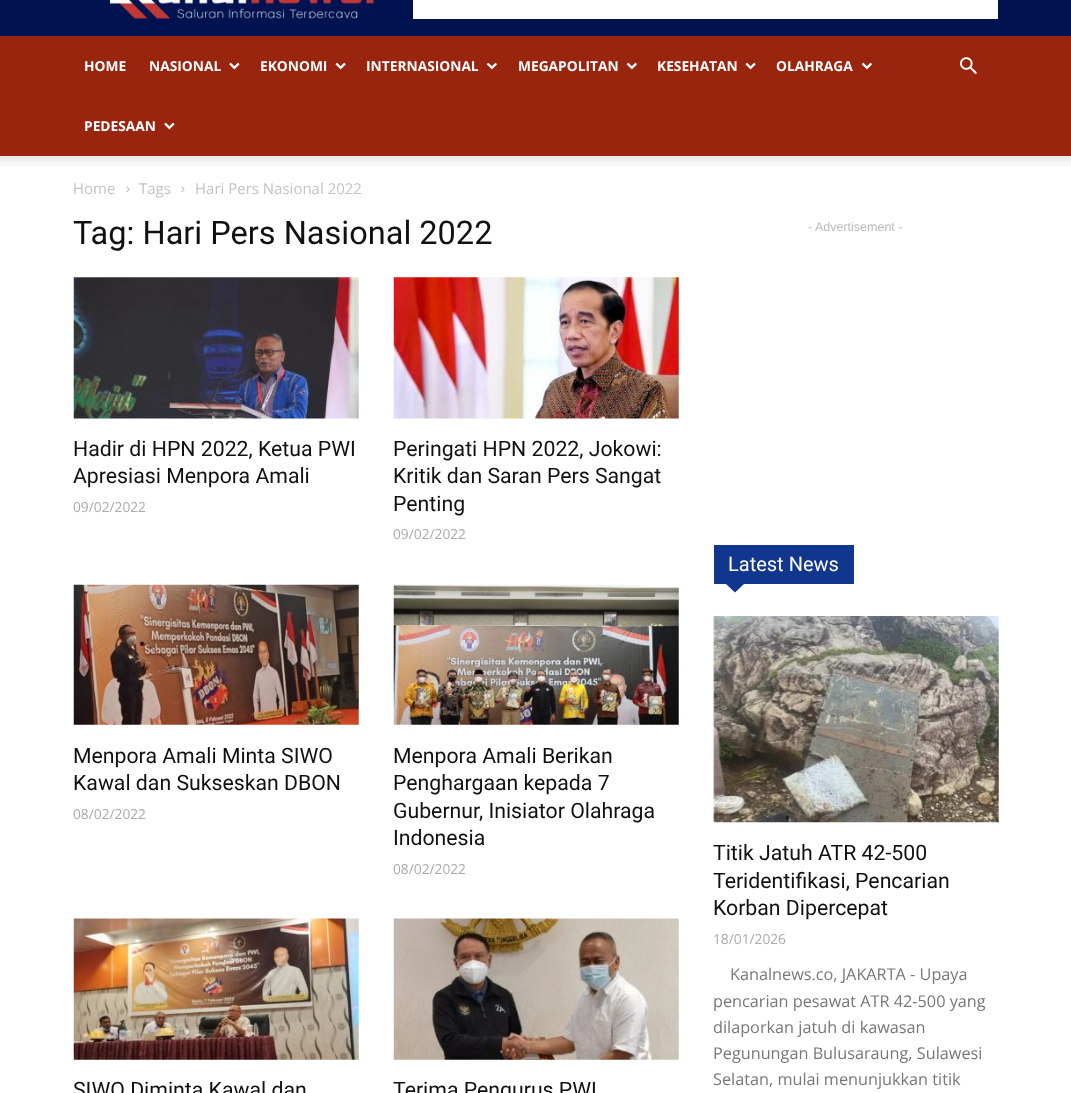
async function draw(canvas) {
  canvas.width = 1071
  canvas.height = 1093
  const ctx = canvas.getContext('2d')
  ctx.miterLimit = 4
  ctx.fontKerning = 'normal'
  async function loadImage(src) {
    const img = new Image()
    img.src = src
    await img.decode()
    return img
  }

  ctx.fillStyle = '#fff'
  ctx.fillRect(0, 0, 1071, 1093)
  ctx.fillStyle = '#00124f'
  ctx.fillRect(0, 0, 1071, 36)
  ctx.drawImage(await loadImage('image0.png'), 110, 0, 264, 19)
  ctx.fillStyle = '#fff'
  ctx.fillRect(413, 0, 585, 19)
  ctx.fillStyle = '#99250f'
  ctx.fillRect(0, 36, 1071, 120)
  ctx.font = 'bold 13.75px Open Sans'
  ctx.fillStyle = '#fff'
  ctx.fillText('HOME', 84, 71)
  ctx.fillText('NASIONAL', 149, 71)
  ctx.drawImage(await loadImage('image1.png'), 229, 62, 11, 8)
  ctx.fillText('EKONOMI', 260, 71)
  ctx.drawImage(await loadImage('image2.png'), 335, 62, 11, 8)
  ctx.fillText('INTERNASIONAL', 366, 71)
  ctx.drawImage(await loadImage('image3.png'), 486, 62, 11, 8)
  ctx.fillText('MEGAPOLITAN', 518, 71)
  ctx.drawImage(await loadImage('image3.png'), 626, 62, 11, 8)
  ctx.fillText('KESEHATAN', 657, 71)
  ctx.drawImage(await loadImage('image2.png'), 745, 62, 11, 8)
  ctx.fillText('OLAHRAGA', 776, 71)
  ctx.drawImage(await loadImage('image3.png'), 861, 62, 11, 8)
  ctx.fillText('PEDESAAN', 84, 131)
  ctx.drawImage(await loadImage('image1.png'), 164, 122, 11, 8)
  ctx.drawImage(await loadImage('image4.png'), 960, 57, 17, 17)
  ctx.drawImage(await loadImage('image5.png'), 0, 156, 1071, 11)
  ctx.font = '15px Open Sans'
  ctx.fillStyle = '#c3c3c3'
  ctx.fillText('Home', 73, 194)
  ctx.drawImage(await loadImage('image6.png'), 126, 186, 4, 7)
  ctx.fillText('Tags', 139, 194)
  ctx.drawImage(await loadImage('image6.png'), 181, 186, 4, 7)
  ctx.fillText('Hari Pers Nasional 2022', 195, 194)
  ctx.font = '32.5px Roboto'
  ctx.fillStyle = '#111'
  ctx.fillText('Tag: Hari Pers Nasional 2022', 73, 244)
  ctx.drawImage(await loadImage('image7.png'), 73, 277, 286, 142)
  ctx.font = '21.25px Roboto'
  ctx.fillText('Hadir di HPN 2022, Ketua PWI', 73, 456)
  ctx.fillText('Apresiasi Menpora Amali', 73, 483)
  ctx.font = '13.75px Open Sans'
  ctx.fillStyle = '#aaa'
  ctx.fillText('09/02/2022', 73, 512)
  ctx.drawImage(await loadImage('image8.png'), 393, 277, 286, 142)
  ctx.font = '21.25px Roboto'
  ctx.fillStyle = '#111'
  ctx.fillText('Peringati HPN 2022, Jokowi:', 393, 456)
  ctx.fillText('Kritik dan Saran Pers Sangat', 393, 483)
  ctx.fillText('Penting', 393, 511)
  ctx.font = '13.75px Open Sans'
  ctx.fillStyle = '#aaa'
  ctx.fillText('09/02/2022', 393, 539)
  ctx.drawImage(await loadImage('image9.png'), 73, 584, 286, 141)
  ctx.font = '21.25px Roboto'
  ctx.fillStyle = '#111'
  ctx.fillText('Menpora Amali Minta SIWO', 73, 763)
  ctx.fillText('Kawal dan Sukseskan DBON', 73, 790)
  ctx.font = '13.75px Open Sans'
  ctx.fillStyle = '#aaa'
  ctx.fillText('08/02/2022', 73, 819)
  ctx.drawImage(await loadImage('image10.png'), 393, 584, 286, 141)
  ctx.font = '21.25px Roboto'
  ctx.fillStyle = '#111'
  ctx.fillText('Menpora Amali Berikan', 393, 763)
  ctx.fillText('Penghargaan kepada 7', 393, 790)
  ctx.fillText('Gubernur, Inisiator Olahraga', 393, 818)
  ctx.fillText('Indonesia', 393, 845)
  ctx.font = '13.75px Open Sans'
  ctx.fillStyle = '#aaa'
  ctx.fillText('08/02/2022', 393, 874)
  ctx.drawImage(await loadImage('image11.png'), 73, 918, 286, 142)
  ctx.font = '21.25px Roboto'
  ctx.fillStyle = '#111'
  ctx.fillText('SIWO Diminta Kawal dan', 73, 1097)
  ctx.drawImage(await loadImage('image12.png'), 393, 918, 286, 142)
  ctx.fillText('Terima Pengurus PWI', 393, 1097)
  ctx.font = '12.5px Liberation Sans'
  ctx.fillStyle = '#bbb'
  ctx.fillText('- Advertisement -', 808, 231)
  ctx.fillStyle = '#11368e'
  ctx.fillRect(714, 545, 140, 39)
  ctx.font = '20px Roboto'
  ctx.fillStyle = '#fff'
  ctx.fillText('Latest News', 728, 571)
  ctx.fillStyle = '#11368e'
  ctx.beginPath()
  ctx.moveTo(726, 584)
  ctx.lineTo(744, 584)
  ctx.lineTo(735, 592.5)
  ctx.closePath()
  ctx.fill()
  ctx.drawImage(await loadImage('image13.png'), 713, 616, 286, 207)
  ctx.font = '21.25px Roboto'
  ctx.fillStyle = '#111'
  ctx.fillText('Titik Jatuh ATR 42-500', 713, 860)
  ctx.fillText('Teridentifikasi, Pencarian', 713, 888)
  ctx.fillText('Korban Dipercepat', 713, 915)
  ctx.font = '13.75px Open Sans'
  ctx.fillStyle = '#aaa'
  ctx.fillText('18/01/2026', 713, 944)
  ctx.font = '16.25px Open Sans'
  ctx.fillStyle = '#777'
  ctx.fillText('Kanalnews.co, JAKARTA - Upaya', 730, 980)
  ctx.fillText('pencarian pesawat ATR 42-500 yang', 713, 1007)
  ctx.fillText('dilaporkan jatuh di kawasan', 713, 1033)
  ctx.fillText('Pegunungan Bulusaraung, Sulawesi', 713, 1059)
  ctx.fillText('Selatan, mulai menunjukkan titik', 713, 1085)
}

draw(document.querySelector('canvas'))
